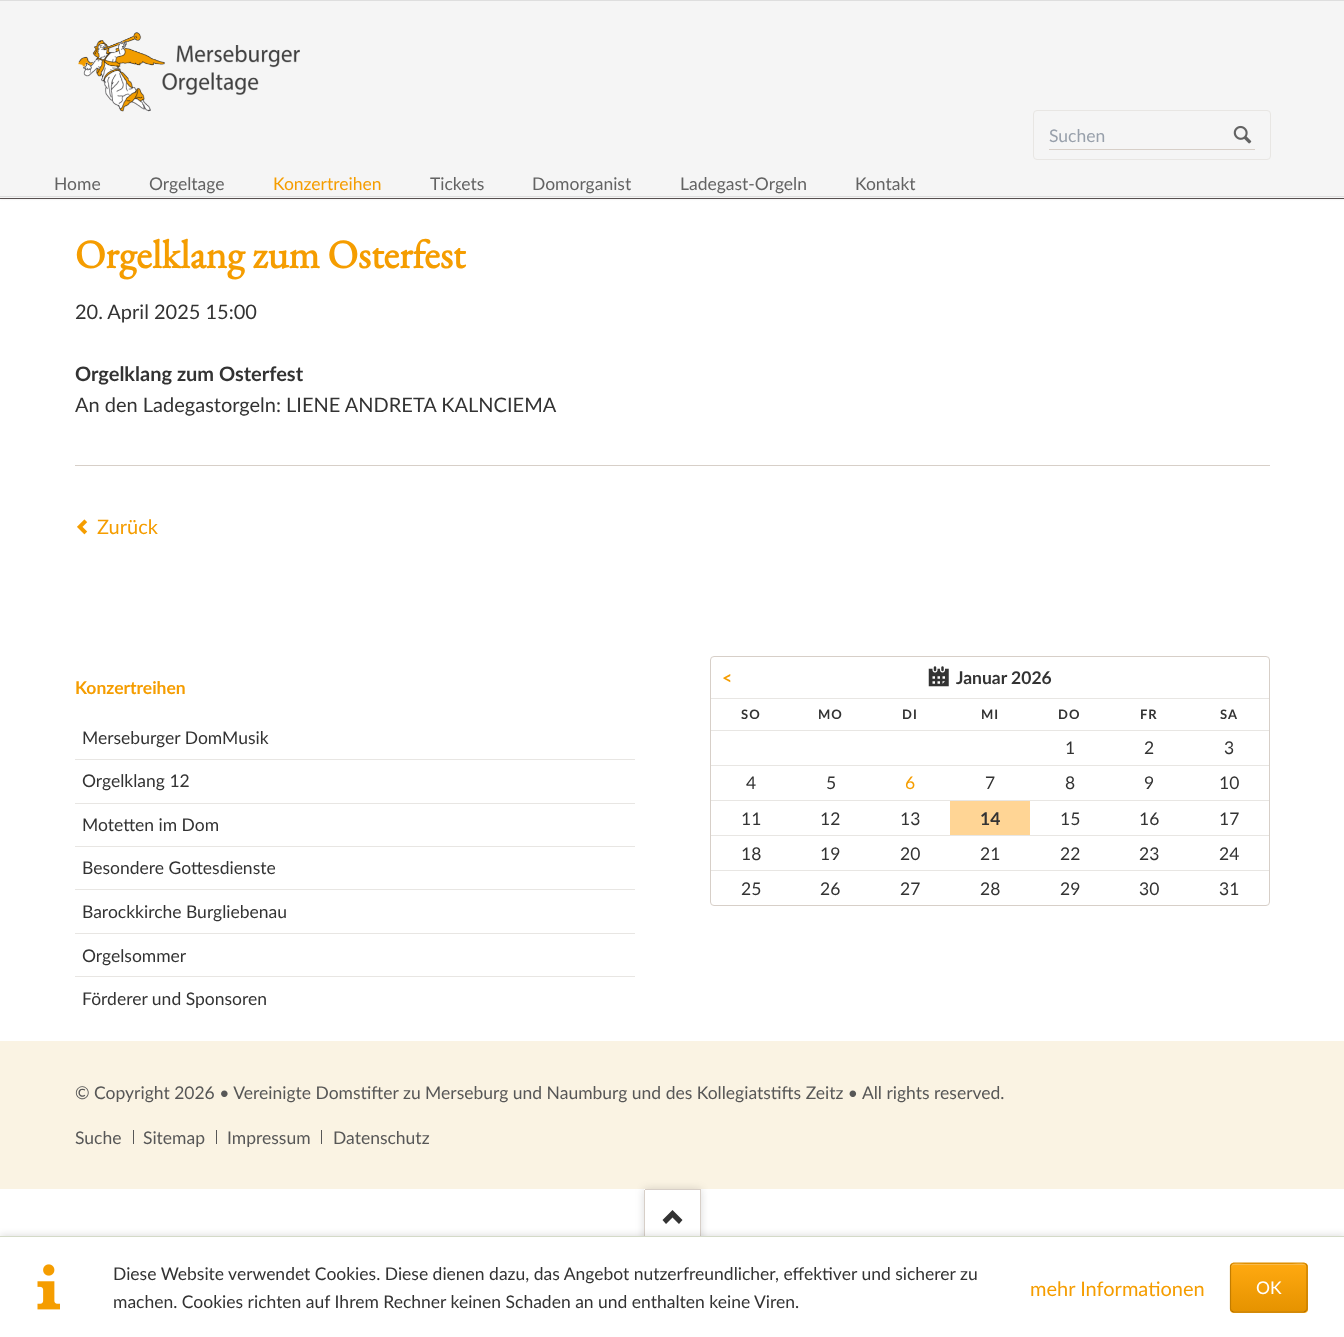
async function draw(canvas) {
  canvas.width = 1344
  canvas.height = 1337
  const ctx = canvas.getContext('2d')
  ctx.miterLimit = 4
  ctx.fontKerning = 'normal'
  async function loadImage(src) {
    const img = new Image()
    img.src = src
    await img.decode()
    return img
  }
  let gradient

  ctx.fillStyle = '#fff'
  ctx.fillRect(0, 0, 1344, 1337)
  ctx.fillStyle = '#dedede'
  ctx.fillRect(0, 0, 1344, 1)
  ctx.fillStyle = '#5e5656'
  ctx.fillRect(0, 198, 1344, 1)
  ctx.fillStyle = '#0000001a'
  ctx.filter = 'blur(1px)'
  ctx.beginPath()
  ctx.rect(0, 3, 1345, 196)
  ctx.fill()
  ctx.filter = 'none'
  ctx.fillStyle = '#f5f5f5'
  ctx.fillRect(0, 1, 1344, 197)
  ctx.fillStyle = '#dedede'
  ctx.fillRect(0, 196, 1344, 1)
  ctx.drawImage(await loadImage('image0.png'), 78, 32, 222, 80)
  ctx.beginPath()
  ctx.roundRect(1033.5, 110.5, 237, 49, 3.5)
  ctx.strokeStyle = '#e8e6e3'
  ctx.stroke()
  ctx.fillStyle = '#d7cfc8'
  ctx.fillRect(1049, 149, 206, 1)
  ctx.font = '17.5px Lato'
  ctx.fillStyle = '#98a0ab'
  ctx.fillText('Suchen', 1049, 142)
  ctx.drawImage(await loadImage('image1.png'), 1233, 125, 19, 19)
  ctx.fillStyle = '#636363'
  ctx.fillText('Home', 54, 190)
  ctx.fillText('Orgeltage', 149, 190)
  ctx.fillStyle = '#f59d00'
  ctx.fillText('Konzertreihen', 273, 190)
  ctx.fillStyle = '#636363'
  ctx.fillText('Tickets', 430, 190)
  ctx.fillText('Domorganist', 532, 190)
  ctx.fillText('Ladegast-Orgeln', 680, 190)
  ctx.fillText('Kontakt', 855, 190)
  ctx.font = 'bold 40px EB Garamond'
  ctx.fillStyle = '#f59d00'
  ctx.fillText('Orgelklang zum Osterfest', 75, 268)
  ctx.font = '20px Lato'
  ctx.fillStyle = '#333'
  ctx.fillText('20. April 2025 15:00', 75, 319)
  ctx.font = 'bold 20px Lato'
  ctx.fillText('Orgelklang zum Osterfest', 75, 381)
  ctx.font = '20px Lato'
  ctx.fillText('An den Ladegastorgeln: LIENE ANDRETA KALNCIEMA', 75, 412)
  ctx.fillStyle = '#d7cfc8'
  ctx.fillRect(75, 465, 1195, 1)
  ctx.drawImage(await loadImage('image2.png'), 77, 519, 11, 16)
  ctx.fillStyle = '#f59d00'
  ctx.fillText('Zurück', 97, 534)
  ctx.font = 'bold 17.5px Lato'
  ctx.fillText('Konzertreihen', 75, 694)
  ctx.font = '17.5px Lato'
  ctx.fillStyle = '#333'
  ctx.fillText('Merseburger DomMusik', 82, 744)
  ctx.fillStyle = '#e8e6e3'
  ctx.fillRect(75, 759, 560, 1)
  ctx.fillStyle = '#333'
  ctx.fillText('Orgelklang 12', 82, 787)
  ctx.fillStyle = '#e8e6e3'
  ctx.fillRect(75, 803, 560, 1)
  ctx.fillStyle = '#333'
  ctx.fillText('Motetten im Dom', 82, 831)
  ctx.fillStyle = '#e8e6e3'
  ctx.fillRect(75, 846, 560, 1)
  ctx.fillStyle = '#333'
  ctx.fillText('Besondere Gottesdienste', 82, 874)
  ctx.fillStyle = '#e8e6e3'
  ctx.fillRect(75, 889, 560, 1)
  ctx.fillStyle = '#333'
  ctx.fillText('Barockkirche Burgliebenau', 82, 918)
  ctx.fillStyle = '#e8e6e3'
  ctx.fillRect(75, 933, 560, 1)
  ctx.fillStyle = '#333'
  ctx.fillText('Orgelsommer', 82, 962)
  ctx.fillStyle = '#e8e6e3'
  ctx.fillRect(75, 976, 560, 1)
  ctx.fillStyle = '#333'
  ctx.fillText('Förderer und Sponsoren', 82, 1005)
  ctx.beginPath()
  ctx.roundRect(710.5, 656.5, 559, 249, 3.5)
  ctx.strokeStyle = '#d7cfc8'
  ctx.stroke()
  ctx.font = 'bold 17.5px Lato'
  ctx.fillStyle = '#f59d00'
  ctx.fillText('<', 722, 684)
  ctx.drawImage(await loadImage('image3.png'), 928, 666, 21, 21)
  ctx.fillStyle = '#333'
  ctx.fillText('Januar 2026', 956, 684)
  ctx.fillStyle = '#e8e6e3'
  ctx.fillRect(711, 698, 558, 1)
  ctx.letterSpacing = '1px'
  ctx.font = 'bold 13px Lato'
  ctx.fillStyle = '#333'
  ctx.fillText('SO', 741, 719)
  ctx.fillText('MO', 818, 719)
  ctx.fillText('DI', 902, 719)
  ctx.fillText('MI', 981, 719)
  ctx.fillText('DO', 1058, 719)
  ctx.fillText('FR', 1140, 719)
  ctx.fillText('SA', 1220, 719)
  ctx.fillStyle = '#e8e6e3'
  ctx.fillRect(711, 730, 558, 1)
  ctx.letterSpacing = '0px'
  ctx.font = '17.5px Lato'
  ctx.fillStyle = '#333'
  ctx.fillText('1', 1065, 754)
  ctx.fillText('2', 1144, 754)
  ctx.fillText('3', 1224, 754)
  ctx.fillStyle = '#e8e6e3'
  ctx.fillRect(711, 765, 558, 1)
  ctx.fillStyle = '#333'
  ctx.fillText('4', 746, 789)
  ctx.fillText('5', 826, 789)
  ctx.fillStyle = '#f59d00'
  ctx.fillText('6', 905, 789)
  ctx.fillStyle = '#333'
  ctx.fillText('7', 985, 789)
  ctx.fillText('8', 1065, 789)
  ctx.fillText('9', 1144, 789)
  ctx.fillText('10', 1219, 789)
  ctx.fillStyle = '#e8e6e3'
  ctx.fillRect(711, 800, 558, 1)
  ctx.fillStyle = '#333'
  ctx.fillText('11', 741, 825)
  ctx.fillText('12', 820, 825)
  ctx.fillText('13', 900, 825)
  ctx.fillStyle = '#ffd595'
  ctx.fillRect(950, 801, 80, 34)
  ctx.font = 'bold 17.5px Lato'
  ctx.fillStyle = '#333'
  ctx.fillText('14', 980, 825)
  ctx.font = '17.5px Lato'
  ctx.fillText('15', 1060, 825)
  ctx.fillText('16', 1139, 825)
  ctx.fillText('17', 1219, 825)
  ctx.fillStyle = '#e8e6e3'
  ctx.fillRect(711, 835, 558, 1)
  ctx.fillStyle = '#333'
  ctx.fillText('18', 741, 860)
  ctx.fillText('19', 820, 860)
  ctx.fillText('20', 900, 860)
  ctx.fillText('21', 980, 860)
  ctx.fillText('22', 1060, 860)
  ctx.fillText('23', 1139, 860)
  ctx.fillText('24', 1219, 860)
  ctx.fillStyle = '#e8e6e3'
  ctx.fillRect(711, 870, 558, 1)
  ctx.fillStyle = '#333'
  ctx.fillText('25', 741, 895)
  ctx.fillText('26', 820, 895)
  ctx.fillText('27', 900, 895)
  ctx.fillText('28', 980, 895)
  ctx.fillText('29', 1060, 895)
  ctx.fillText('30', 1139, 895)
  ctx.fillText('31', 1219, 895)
  ctx.fillStyle = '#faf3e3'
  ctx.fillRect(0, 1041, 1344, 148)
  ctx.fillStyle = '#575757'
  ctx.fillText('© Copyright 2026 • Vereinigte Domstifter zu Merseburg und Naumburg und des Kollegiatstifts Zeitz • All rights reserved.', 75, 1099)
  ctx.fillText('Suche', 75, 1144)
  ctx.fillRect(133, 1130, 1, 14)
  ctx.fillText('Sitemap', 143, 1144)
  ctx.fillRect(216, 1130, 1, 14)
  ctx.fillText('Impressum', 227, 1144)
  ctx.fillRect(321, 1130, 1, 14)
  ctx.fillText('Datenschutz', 333, 1144)
  ctx.save()
  ctx.beginPath()
  ctx.moveTo(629, 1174)
  ctx.lineTo(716, 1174)
  ctx.lineTo(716, 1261)
  ctx.lineTo(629, 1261)
  ctx.closePath()
  ctx.moveTo(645, 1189)
  ctx.lineTo(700, 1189)
  ctx.bezierCurveTo(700.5, 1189, 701, 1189.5, 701, 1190)
  ctx.lineTo(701, 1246)
  ctx.lineTo(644, 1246)
  ctx.lineTo(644, 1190)
  ctx.bezierCurveTo(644, 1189.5, 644.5, 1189, 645, 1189)
  ctx.closePath()
  ctx.clip('evenodd')
  ctx.fillStyle = '#00000026'
  ctx.filter = 'blur(4.5px)'
  ctx.beginPath()
  ctx.roundRect(644, 1189, 57, 57, 1)
  ctx.fill()
  ctx.filter = 'none'
  ctx.restore()
  ctx.fillStyle = '#d7cfc8'
  ctx.fillRect(645, 1189, 56, 1)
  ctx.fillRect(700, 1190, 1, 46)
  ctx.fillRect(644, 1190, 1, 46)
  ctx.fillStyle = '#333'
  ctx.beginPath()
  ctx.moveTo(662.5, 1220)
  ctx.lineTo(666, 1224)
  ctx.lineTo(672.5, 1217.5)
  ctx.lineTo(679, 1224)
  ctx.lineTo(682.5, 1220)
  ctx.lineTo(672.5, 1210)
  ctx.closePath()
  ctx.fill()
  ctx.fillStyle = '#0000001a'
  ctx.filter = 'blur(3px)'
  ctx.beginPath()
  ctx.rect(0, 1234, 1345, 101)
  ctx.fill()
  ctx.filter = 'none'
  ctx.fillStyle = '#fff'
  ctx.fillRect(0, 1237, 1344, 100)
  ctx.fillStyle = '#d4dac8'
  ctx.fillRect(0, 1236, 1344, 1)
  ctx.drawImage(await loadImage('image4.png'), 37, 1264, 23, 46)
  ctx.fillStyle = '#333'
  ctx.fillText('Diese Website verwendet Cookies. Diese dienen dazu, das Angebot nutzerfreundlicher, effektiver und sicherer zu', 113, 1280)
  ctx.fillText('machen. Cookies richten auf Ihrem Rechner keinen Schaden an und enthalten keine Viren.', 113, 1308)
  ctx.font = '20px Lato'
  ctx.fillStyle = '#f59d00'
  ctx.fillText('mehr Informationen', 1030, 1296)
  ctx.save()
  ctx.beginPath()
  ctx.roundRect(1230, 1263, 78, 50, 4)
  ctx.clip()
  gradient = ctx.createLinearGradient(1269, 1216, 1269, 1264)
  gradient.addColorStop(0, '#ffa910')
  gradient.addColorStop(1, '#e69300')
  ctx.fillStyle = gradient
  ctx.fillRect(1230, 1263, 78, 1)
  gradient = ctx.createLinearGradient(1269, 1264, 1269, 1311)
  gradient.addColorStop(0, '#ffa910')
  gradient.addColorStop(1, '#e69300')
  ctx.fillStyle = gradient
  ctx.fillRect(1230, 1264, 78, 47)
  gradient = ctx.createLinearGradient(1269, 1311, 1269, 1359)
  gradient.addColorStop(0, '#ffa910')
  gradient.addColorStop(1, '#e69300')
  ctx.fillStyle = gradient
  ctx.fillRect(1230, 1311, 78, 2)
  ctx.restore()
  ctx.fillStyle = '#f8ba4c'
  ctx.beginPath()
  ctx.moveTo(1234, 1265)
  ctx.lineTo(1304, 1265)
  ctx.bezierCurveTo(1305, 1265, 1306, 1266, 1306, 1268)
  ctx.bezierCurveTo(1306, 1261, 1297, 1264, 1292, 1264)
  ctx.lineTo(1245, 1264)
  ctx.bezierCurveTo(1240, 1264, 1231, 1261, 1231, 1268)
  ctx.bezierCurveTo(1231, 1266, 1232, 1265, 1234, 1265)
  ctx.closePath()
  ctx.fill()
  ctx.beginPath()
  ctx.moveTo(1231.5, 1264)
  ctx.lineTo(1233.5, 1263)
  ctx.lineTo(1304, 1263)
  ctx.lineTo(1306, 1264)
  ctx.strokeStyle = '#dc8d00'
  ctx.lineWidth = 1.2
  ctx.stroke()
  ctx.beginPath()
  ctx.moveTo(1306, 1264)
  ctx.lineTo(1307, 1266)
  ctx.lineTo(1307, 1309)
  ctx.lineTo(1306, 1311)
  ctx.strokeStyle = '#c27c00'
  ctx.stroke()
  ctx.beginPath()
  ctx.moveTo(1306, 1311)
  ctx.lineTo(1304, 1312)
  ctx.lineTo(1233.5, 1312)
  ctx.lineTo(1231.5, 1311)
  ctx.strokeStyle = '#a96c00'
  ctx.stroke()
  ctx.beginPath()
  ctx.moveTo(1231.5, 1311)
  ctx.lineTo(1230.5, 1309)
  ctx.lineTo(1230.5, 1266)
  ctx.lineTo(1231.5, 1264)
  ctx.strokeStyle = '#c27c00'
  ctx.stroke()
  ctx.font = '17.5px Lato'
  ctx.fillStyle = '#fff'
  ctx.fillText('OK', 1256, 1294)
}

draw(document.querySelector('canvas'))
